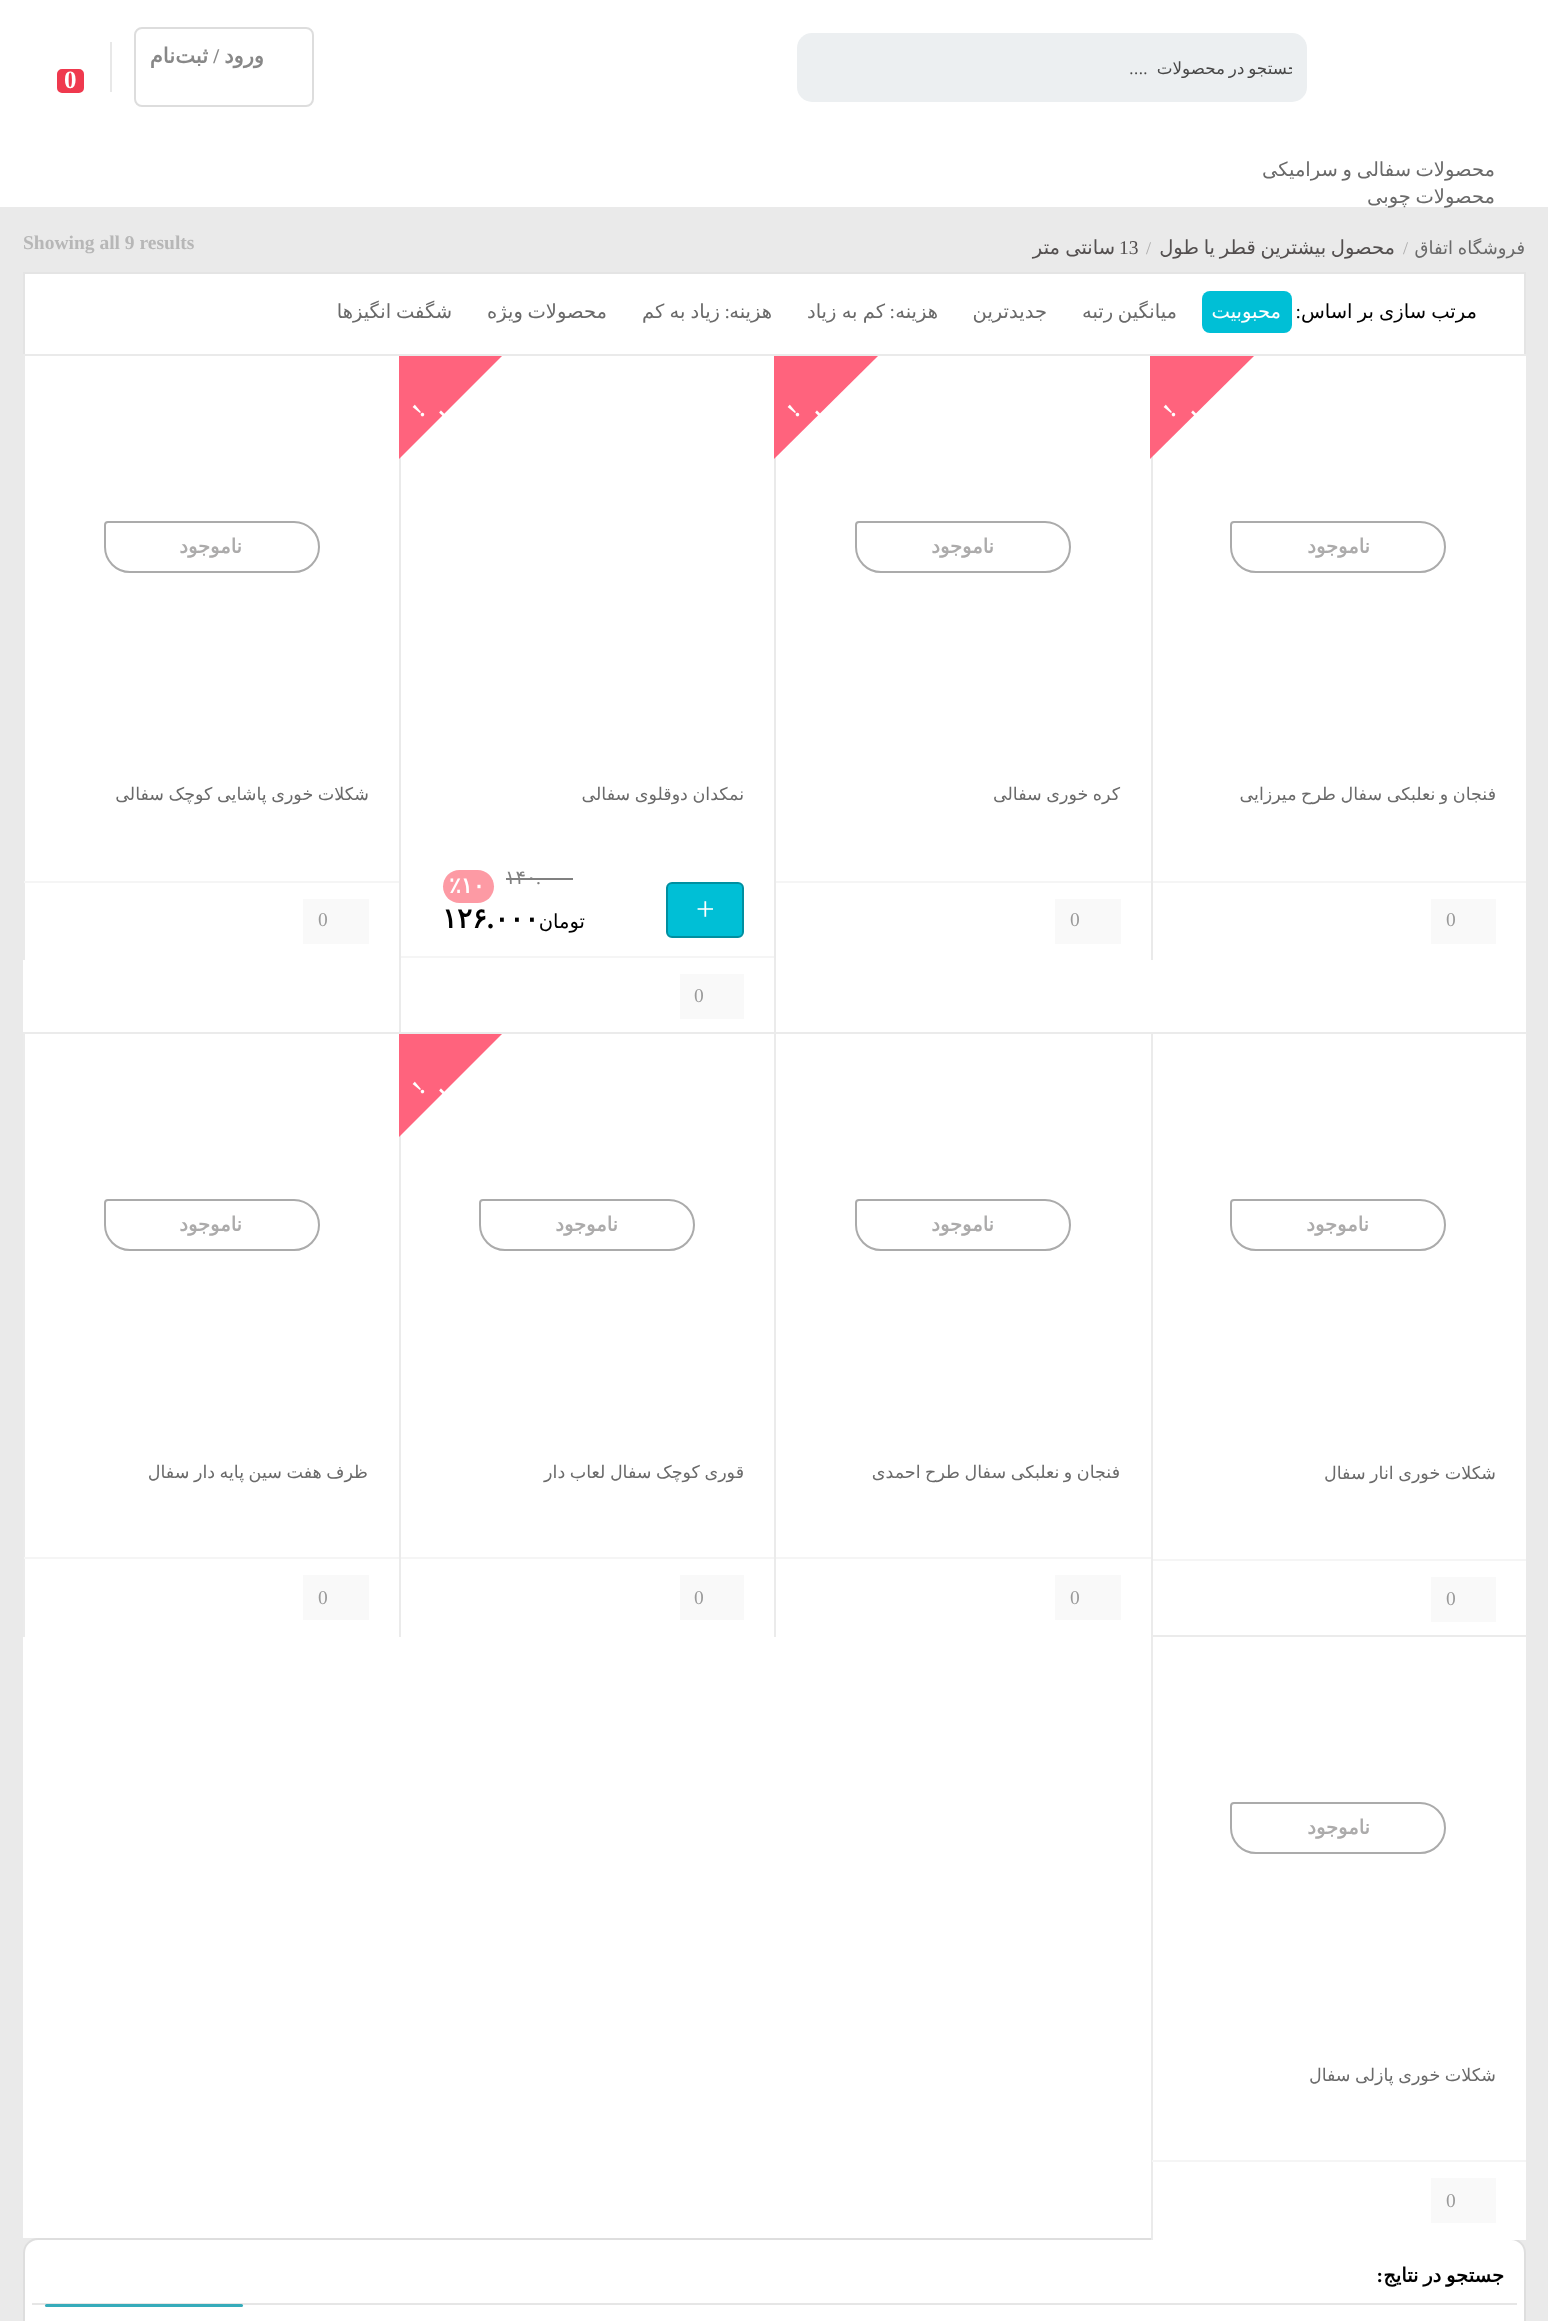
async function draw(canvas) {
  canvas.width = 1548
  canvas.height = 2321
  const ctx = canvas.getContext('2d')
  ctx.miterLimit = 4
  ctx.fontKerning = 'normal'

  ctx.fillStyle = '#eaeaea'
  ctx.fillRect(0, 0, 1548, 2321)
  ctx.fillStyle = '#fff'
  ctx.fillRect(0, 0, 1548, 207)
  ctx.fillStyle = '#eceff1'
  ctx.beginPath()
  ctx.roundRect(813, 33, 494, 69, [0, 15, 15, 0])
  ctx.fill()
  ctx.save()
  ctx.beginPath()
  ctx.rect(828, 59, 464, 19)
  ctx.clip()
  ctx.letterSpacing = '0.5px'
  ctx.wordSpacing = '-2px'
  ctx.direction = 'rtl'
  ctx.font = '16.75px DejaVu Sans'
  ctx.fillStyle = '#474747'
  ctx.fillText('جستجو در محصولات', 1298, 74)
  ctx.restore()
  ctx.letterSpacing = '0.5px'
  ctx.direction = 'rtl'
  ctx.font = '16.75px Liberation Serif'
  ctx.fillStyle = '#474747'
  ctx.fillText('....', 1148, 74)
  ctx.fillStyle = '#eceff1'
  ctx.beginPath()
  ctx.roundRect(797, 33, 90, 69, [15, 0, 0, 15])
  ctx.fill()
  ctx.beginPath()
  ctx.roundRect(135, 28, 178, 78, 7)
  ctx.strokeStyle = '#ddd'
  ctx.lineWidth = 2
  ctx.stroke()
  ctx.letterSpacing = '0px'
  ctx.font = 'bold 21px DejaVu Sans'
  ctx.fillStyle = '#888'
  ctx.fillText('ورود', 264, 63)
  ctx.font = 'bold 21px Liberation Serif'
  ctx.fillText('/', 219, 63)
  ctx.font = 'bold 21px DejaVu Sans'
  ctx.fillText('ثبت', 208, 63)
  ctx.fillText('نام', 175, 63)
  ctx.fillStyle = '#e8e8e8'
  ctx.fillRect(110, 42, 2, 50)
  ctx.fillStyle = '#ef394e'
  ctx.beginPath()
  ctx.roundRect(55.5, 67.5, 30, 27, 6.5)
  ctx.fill()
  ctx.strokeStyle = '#fff'
  ctx.lineWidth = 3
  ctx.stroke()
  ctx.direction = 'ltr'
  ctx.font = 'bold 25px Liberation Serif'
  ctx.fillStyle = '#fff'
  ctx.fillText('0', 64, 88)
  ctx.direction = 'rtl'
  ctx.font = '19.5px DejaVu Sans'
  ctx.fillStyle = '#6a6a6a'
  ctx.fillText('محصولات', 1495, 176)
  ctx.wordSpacing = '-1.5px'
  ctx.fillText('سفالی و سرامیکی', 1411, 176)
  ctx.fillText('محصولات چوبی', 1495, 203)
  ctx.wordSpacing = '-1px'
  ctx.font = '18px DejaVu Sans'
  ctx.fillText('فروشگاه اتفاق', 1525, 254)
  ctx.wordSpacing = '0px'
  ctx.direction = 'ltr'
  ctx.font = '18px Liberation Serif'
  ctx.fillStyle = '#acabab'
  ctx.fillText('/', 1403, 254)
  ctx.wordSpacing = '-1.5px'
  ctx.direction = 'rtl'
  ctx.font = '19.5px DejaVu Sans'
  ctx.fillStyle = '#534f4f'
  ctx.fillText('محصول بیشترین قطر یا طول', 1395, 254)
  ctx.wordSpacing = '0px'
  ctx.direction = 'ltr'
  ctx.font = '18px Liberation Serif'
  ctx.fillStyle = '#acabab'
  ctx.fillText('/', 1146, 254)
  ctx.font = '19.5px Liberation Serif'
  ctx.fillStyle = '#534f4f'
  ctx.fillText('13', 1119, 254)
  ctx.wordSpacing = '-1px'
  ctx.direction = 'rtl'
  ctx.font = '19.5px DejaVu Sans'
  ctx.fillText('سانتی متر', 1115, 254)
  ctx.wordSpacing = '0px'
  ctx.direction = 'ltr'
  ctx.font = 'bold 19.5px Liberation Serif'
  ctx.fillStyle = '#b7b7b7'
  ctx.fillText('Showing all 9 results', 23, 249)
  ctx.fillStyle = '#fff'
  ctx.fillRect(25, 274, 1499, 80)
  ctx.fillStyle = '#e4e4e4'
  ctx.fillRect(23, 272, 1503, 2)
  ctx.fillRect(1524, 272, 2, 84)
  ctx.fillRect(23, 272, 2, 84)
  ctx.wordSpacing = '-1px'
  ctx.direction = 'rtl'
  ctx.font = '19.5px DejaVu Sans'
  ctx.fillStyle = '#000'
  ctx.fillText('مرتب سازی بر اساس', 1477, 318)
  ctx.wordSpacing = '0px'
  ctx.font = '19.5px Liberation Serif'
  ctx.fillText(':', 1301, 318)
  ctx.fillStyle = '#00bfd6'
  ctx.beginPath()
  ctx.roundRect(1202, 291, 90, 42, 8)
  ctx.fill()
  ctx.font = '19.5px DejaVu Sans'
  ctx.fillStyle = '#fff'
  ctx.fillText('محبوبیت', 1281, 318)
  ctx.wordSpacing = '-1.5px'
  ctx.fillStyle = '#6a6a6a'
  ctx.fillText('میانگین رتبه', 1177, 318)
  ctx.wordSpacing = '0px'
  ctx.fillText('جدیدترین', 1047, 318)
  ctx.fillText('هزینه', 938, 318)
  ctx.font = '19.5px Liberation Serif'
  ctx.fillText(':', 895, 318)
  ctx.wordSpacing = '-1px'
  ctx.font = '19.5px DejaVu Sans'
  ctx.fillText('کم به زیاد', 885, 318)
  ctx.wordSpacing = '0px'
  ctx.fillText('هزینه', 772, 318)
  ctx.font = '19.5px Liberation Serif'
  ctx.fillText(':', 730, 318)
  ctx.wordSpacing = '-1px'
  ctx.font = '19.5px DejaVu Sans'
  ctx.fillText('زیاد به کم', 720, 318)
  ctx.wordSpacing = '-1.5px'
  ctx.fillText('محصولات ویژه', 607, 318)
  ctx.fillText('شگفت انگیزها', 452, 318)
  ctx.fillStyle = '#fff'
  ctx.fillRect(23, 960, 1503, 1278)
  ctx.fillRect(1153, 356, 373, 604)
  ctx.fillRect(776, 356, 375, 604)
  ctx.fillStyle = '#ff637d'
  ctx.beginPath()
  ctx.moveTo(1150, 459)
  ctx.lineTo(1150, 356)
  ctx.lineTo(1254, 356)
  ctx.closePath()
  ctx.fill()
  ctx.wordSpacing = '0px'
  ctx.font = 'bold 21px DejaVu Sans'
  ctx.fillStyle = '#fff'
  ctx.save()
  ctx.translate(1223, 404)
  ctx.rotate(-45 * Math.PI / 180)
  ctx.fillText('حراج', 0, 0)
  ctx.restore()
  ctx.font = 'bold 21px Liberation Serif'
  ctx.save()
  ctx.translate(1177, 413)
  ctx.rotate(-45 * Math.PI / 180)
  ctx.fillText('!', 0, 0)
  ctx.restore()
  ctx.fillStyle = '#ebebeb'
  ctx.fillRect(1524, 354, 3, 2)
  ctx.beginPath()
  ctx.roundRect(1231, 522, 214, 50, [3, 25, 25, 25])
  ctx.strokeStyle = '#ababab'
  ctx.lineWidth = 2
  ctx.stroke()
  ctx.font = 'bold 19.5px DejaVu Sans'
  ctx.fillStyle = '#acabab'
  ctx.fillText('ناموجود', 1370, 553)
  ctx.save()
  ctx.beginPath()
  ctx.rect(1182, 777, 314, 71)
  ctx.clip()
  ctx.wordSpacing = '-1px'
  ctx.font = '17.5px DejaVu Sans'
  ctx.fillStyle = '#6a6a6a'
  ctx.fillText('فنجان و نعلبکی سفال طرح میرزایی', 1496, 800)
  ctx.restore()
  ctx.fillStyle = '#f5f5f5'
  ctx.fillRect(1152, 881, 374, 2)
  ctx.fillStyle = '#f9f9f9'
  ctx.fillRect(1431, 899, 65, 45)
  ctx.direction = 'ltr'
  ctx.font = '19.5px Liberation Serif'
  ctx.fillStyle = '#9a9a9a'
  ctx.fillText('0', 1446, 926)
  ctx.fillStyle = '#ff637d'
  ctx.beginPath()
  ctx.moveTo(774, 459)
  ctx.lineTo(774, 356)
  ctx.lineTo(878, 356)
  ctx.closePath()
  ctx.fill()
  ctx.direction = 'rtl'
  ctx.font = 'bold 21px DejaVu Sans'
  ctx.fillStyle = '#fff'
  ctx.save()
  ctx.translate(847, 404)
  ctx.rotate(-45 * Math.PI / 180)
  ctx.fillText('حراج', 0, 0)
  ctx.restore()
  ctx.font = 'bold 21px Liberation Serif'
  ctx.save()
  ctx.translate(801, 413)
  ctx.rotate(-45 * Math.PI / 180)
  ctx.fillText('!', 0, 0)
  ctx.restore()
  ctx.fillStyle = '#ebebeb'
  ctx.fillRect(1152, 881, 1, 2)
  ctx.beginPath()
  ctx.roundRect(856, 522, 214, 50, [3, 25, 25, 25])
  ctx.stroke()
  ctx.font = 'bold 19.5px DejaVu Sans'
  ctx.fillStyle = '#acabab'
  ctx.fillText('ناموجود', 994, 553)
  ctx.save()
  ctx.beginPath()
  ctx.rect(806, 777, 315, 71)
  ctx.clip()
  ctx.wordSpacing = '-1px'
  ctx.font = '17.5px DejaVu Sans'
  ctx.fillStyle = '#6a6a6a'
  ctx.fillText('کره خوری سفالی', 1120, 800)
  ctx.restore()
  ctx.fillStyle = '#f5f5f5'
  ctx.fillRect(776, 881, 375, 2)
  ctx.fillStyle = '#f9f9f9'
  ctx.fillRect(1055, 899, 66, 45)
  ctx.direction = 'ltr'
  ctx.font = '19.5px Liberation Serif'
  ctx.fillStyle = '#9a9a9a'
  ctx.fillText('0', 1070, 926)
  ctx.fillStyle = '#fff'
  ctx.fillRect(401, 356, 373, 604)
  ctx.fillStyle = '#ff637d'
  ctx.beginPath()
  ctx.moveTo(399, 459)
  ctx.lineTo(399, 356)
  ctx.lineTo(502, 356)
  ctx.closePath()
  ctx.fill()
  ctx.direction = 'rtl'
  ctx.font = 'bold 21px DejaVu Sans'
  ctx.fillStyle = '#fff'
  ctx.save()
  ctx.translate(471, 404)
  ctx.rotate(-45 * Math.PI / 180)
  ctx.fillText('حراج', 0, 0)
  ctx.restore()
  ctx.font = 'bold 21px Liberation Serif'
  ctx.save()
  ctx.translate(426, 413)
  ctx.rotate(-45 * Math.PI / 180)
  ctx.fillText('!', 0, 0)
  ctx.restore()
  ctx.fillStyle = '#ebebeb'
  ctx.fillRect(774, 960, 2, 75)
  ctx.fillRect(399, 960, 2, 75)
  ctx.save()
  ctx.beginPath()
  ctx.rect(431, 777, 313, 71)
  ctx.clip()
  ctx.wordSpacing = '-1px'
  ctx.font = '17.5px DejaVu Sans'
  ctx.fillStyle = '#6a6a6a'
  ctx.fillText('نمکدان دوقلوی سفالی', 744, 800)
  ctx.restore()
  ctx.fillStyle = '#00bfd6'
  ctx.beginPath()
  ctx.roundRect(667, 883, 76, 54, 5)
  ctx.fill()
  ctx.strokeStyle = '#008fa0'
  ctx.stroke()
  ctx.direction = 'ltr'
  ctx.font = '33px Liberation Serif'
  ctx.fillStyle = '#fff'
  ctx.fillText('+', 696, 920)
  ctx.font = '19.5px Liberation Serif'
  ctx.fillStyle = '#808080'
  ctx.fillText('.', 536, 884)
  ctx.font = '19.5px DejaVu Sans'
  ctx.fillText('۱۴۰', 505, 884)
  ctx.fillRect(506, 878, 67, 2)
  ctx.fillStyle = '#fd9aa4'
  ctx.beginPath()
  ctx.roundRect(443, 870, 51, 33, 16.5)
  ctx.fill()
  ctx.font = 'bold 22px DejaVu Sans'
  ctx.fillStyle = '#fff'
  ctx.fillText('٪۱۰', 449, 893)
  ctx.direction = 'rtl'
  ctx.font = '19.5px DejaVu Sans'
  ctx.fillStyle = '#000'
  ctx.fillText('تومان', 585, 928)
  ctx.direction = 'ltr'
  ctx.font = 'bold 28px DejaVu Sans'
  ctx.fillText('۰۰۰', 494, 928)
  ctx.fillText('۱۲۶', 442, 928)
  ctx.font = 'bold 28px Liberation Serif'
  ctx.fillText('.', 487, 928)
  ctx.fillStyle = '#f5f5f5'
  ctx.fillRect(401, 956, 373, 2)
  ctx.fillStyle = '#f9f9f9'
  ctx.fillRect(680, 974, 64, 45)
  ctx.font = '19.5px Liberation Serif'
  ctx.fillStyle = '#9a9a9a'
  ctx.fillText('0', 694, 1002)
  ctx.fillStyle = '#fff'
  ctx.fillRect(25, 356, 374, 604)
  ctx.fillStyle = '#ebebeb'
  ctx.fillRect(23, 354, 2, 2)
  ctx.beginPath()
  ctx.roundRect(105, 522, 214, 50, [3, 25, 25, 25])
  ctx.strokeStyle = '#ababab'
  ctx.stroke()
  ctx.direction = 'rtl'
  ctx.font = 'bold 19.5px DejaVu Sans'
  ctx.fillStyle = '#acabab'
  ctx.fillText('ناموجود', 242, 553)
  ctx.save()
  ctx.beginPath()
  ctx.rect(54, 777, 315, 71)
  ctx.clip()
  ctx.wordSpacing = '-1px'
  ctx.font = '17.5px DejaVu Sans'
  ctx.fillStyle = '#6a6a6a'
  ctx.fillText('شکلات خوری پاشایی کوچک سفالی', 369, 800)
  ctx.restore()
  ctx.fillStyle = '#f5f5f5'
  ctx.fillRect(24, 881, 375, 2)
  ctx.fillStyle = '#f9f9f9'
  ctx.fillRect(303, 899, 66, 45)
  ctx.direction = 'ltr'
  ctx.font = '19.5px Liberation Serif'
  ctx.fillStyle = '#9a9a9a'
  ctx.fillText('0', 318, 926)
  ctx.fillStyle = '#ebebeb'
  ctx.fillRect(23, 1032, 1504, 2)
  ctx.beginPath()
  ctx.roundRect(1231, 1200, 214, 50, [3, 25, 25, 25])
  ctx.stroke()
  ctx.direction = 'rtl'
  ctx.font = 'bold 19.5px DejaVu Sans'
  ctx.fillStyle = '#acabab'
  ctx.fillText('ناموجود', 1369, 1231)
  ctx.save()
  ctx.beginPath()
  ctx.rect(1181, 1455, 315, 71)
  ctx.clip()
  ctx.wordSpacing = '-1px'
  ctx.font = '17.5px DejaVu Sans'
  ctx.fillStyle = '#6a6a6a'
  ctx.fillText('شکلات خوری انار سفال', 1496, 1479)
  ctx.restore()
  ctx.fillStyle = '#f5f5f5'
  ctx.fillRect(1151, 1559, 375, 2)
  ctx.fillStyle = '#f9f9f9'
  ctx.fillRect(1431, 1577, 65, 45)
  ctx.direction = 'ltr'
  ctx.font = '19.5px Liberation Serif'
  ctx.fillStyle = '#9a9a9a'
  ctx.fillText('0', 1446, 1605)
  ctx.fillStyle = '#ebebeb'
  ctx.fillRect(1151, 1032, 2, 605)
  ctx.beginPath()
  ctx.roundRect(856, 1200, 214, 50, [3, 25, 25, 25])
  ctx.stroke()
  ctx.direction = 'rtl'
  ctx.font = 'bold 19.5px DejaVu Sans'
  ctx.fillStyle = '#acabab'
  ctx.fillText('ناموجود', 994, 1231)
  ctx.save()
  ctx.beginPath()
  ctx.rect(806, 1454, 315, 70)
  ctx.clip()
  ctx.wordSpacing = '-1px'
  ctx.font = '17.5px DejaVu Sans'
  ctx.fillStyle = '#6a6a6a'
  ctx.fillText('فنجان و نعلبکی سفال طرح احمدی', 1120, 1478)
  ctx.restore()
  ctx.fillStyle = '#f5f5f5'
  ctx.fillRect(776, 1557, 375, 2)
  ctx.fillStyle = '#f9f9f9'
  ctx.fillRect(1055, 1575, 66, 45)
  ctx.direction = 'ltr'
  ctx.font = '19.5px Liberation Serif'
  ctx.fillStyle = '#9a9a9a'
  ctx.fillText('0', 1070, 1604)
  ctx.fillStyle = '#ebebeb'
  ctx.fillRect(399, 1032, 2, 605)
  ctx.fillStyle = '#ff637d'
  ctx.beginPath()
  ctx.moveTo(399, 1137)
  ctx.lineTo(399, 1034)
  ctx.lineTo(502, 1034)
  ctx.closePath()
  ctx.fill()
  ctx.direction = 'rtl'
  ctx.font = 'bold 21px DejaVu Sans'
  ctx.fillStyle = '#fff'
  ctx.save()
  ctx.translate(471, 1082)
  ctx.rotate(-45 * Math.PI / 180)
  ctx.fillText('حراج', 0, 0)
  ctx.restore()
  ctx.font = 'bold 21px Liberation Serif'
  ctx.save()
  ctx.translate(426, 1090)
  ctx.rotate(-45 * Math.PI / 180)
  ctx.fillText('!', 0, 0)
  ctx.restore()
  ctx.fillStyle = '#ebebeb'
  ctx.fillRect(774, 1032, 2, 605)
  ctx.beginPath()
  ctx.roundRect(480, 1200, 214, 50, [3, 25, 25, 25])
  ctx.stroke()
  ctx.font = 'bold 19.5px DejaVu Sans'
  ctx.fillStyle = '#acabab'
  ctx.fillText('ناموجود', 618, 1231)
  ctx.save()
  ctx.beginPath()
  ctx.rect(431, 1454, 313, 70)
  ctx.clip()
  ctx.wordSpacing = '-1px'
  ctx.font = '17.5px DejaVu Sans'
  ctx.fillStyle = '#6a6a6a'
  ctx.fillText('قوری کوچک سفال لعاب دار', 744, 1478)
  ctx.restore()
  ctx.fillStyle = '#f5f5f5'
  ctx.fillRect(401, 1557, 373, 2)
  ctx.fillStyle = '#f9f9f9'
  ctx.fillRect(680, 1575, 64, 45)
  ctx.direction = 'ltr'
  ctx.font = '19.5px Liberation Serif'
  ctx.fillStyle = '#9a9a9a'
  ctx.fillText('0', 694, 1604)
  ctx.fillStyle = '#ebebeb'
  ctx.fillRect(23, 1032, 2, 605)
  ctx.beginPath()
  ctx.roundRect(105, 1200, 214, 50, [3, 25, 25, 25])
  ctx.stroke()
  ctx.direction = 'rtl'
  ctx.font = 'bold 19.5px DejaVu Sans'
  ctx.fillStyle = '#acabab'
  ctx.fillText('ناموجود', 242, 1231)
  ctx.save()
  ctx.beginPath()
  ctx.rect(54, 1454, 315, 70)
  ctx.clip()
  ctx.wordSpacing = '-1px'
  ctx.font = '17.5px DejaVu Sans'
  ctx.fillStyle = '#6a6a6a'
  ctx.fillText('ظرف هفت سین پایه دار سفال', 368, 1478)
  ctx.restore()
  ctx.fillStyle = '#f5f5f5'
  ctx.fillRect(24, 1557, 375, 2)
  ctx.fillStyle = '#f9f9f9'
  ctx.fillRect(303, 1575, 66, 45)
  ctx.direction = 'ltr'
  ctx.font = '19.5px Liberation Serif'
  ctx.fillStyle = '#9a9a9a'
  ctx.fillText('0', 318, 1604)
  ctx.fillStyle = '#fff'
  ctx.beginPath()
  ctx.roundRect(24, 2239, 1501, 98, 14)
  ctx.fill()
  ctx.strokeStyle = '#dedede'
  ctx.stroke()
  ctx.fillRect(1153, 2238, 373, 2)
  ctx.fillStyle = '#ebebeb'
  ctx.fillRect(1151, 1635, 376, 2)
  ctx.fillRect(1151, 1635, 2, 605)
  ctx.beginPath()
  ctx.roundRect(1231, 1803, 214, 50, [3, 25, 25, 25])
  ctx.strokeStyle = '#ababab'
  ctx.stroke()
  ctx.direction = 'rtl'
  ctx.font = 'bold 19.5px DejaVu Sans'
  ctx.fillStyle = '#acabab'
  ctx.fillText('ناموجود', 1370, 1834)
  ctx.save()
  ctx.beginPath()
  ctx.rect(1182, 2057, 314, 70)
  ctx.clip()
  ctx.wordSpacing = '-1px'
  ctx.font = '17.5px DejaVu Sans'
  ctx.fillStyle = '#6a6a6a'
  ctx.fillText('شکلات خوری پازلی سفال', 1496, 2081)
  ctx.restore()
  ctx.fillStyle = '#f5f5f5'
  ctx.fillRect(1152, 2160, 374, 2)
  ctx.fillStyle = '#f9f9f9'
  ctx.fillRect(1431, 2178, 65, 45)
  ctx.direction = 'ltr'
  ctx.font = '19.5px Liberation Serif'
  ctx.fillStyle = '#9a9a9a'
  ctx.fillText('0', 1446, 2207)
  ctx.fillStyle = '#e6e6e6'
  ctx.fillRect(32, 2303, 1485, 2)
  ctx.wordSpacing = '-1.5px'
  ctx.direction = 'rtl'
  ctx.font = 'bold 19.5px DejaVu Sans'
  ctx.fillStyle = '#000'
  ctx.fillText('جستجو در نتایج', 1504, 2282)
  ctx.wordSpacing = '0px'
  ctx.font = 'bold 19.5px Liberation Serif'
  ctx.fillText(':', 1383, 2282)
  ctx.fillStyle = '#36abba'
  ctx.beginPath()
  ctx.roundRect(45, 2304, 198, 3, 1.5)
  ctx.fill()
}

draw(document.querySelector('canvas'))
